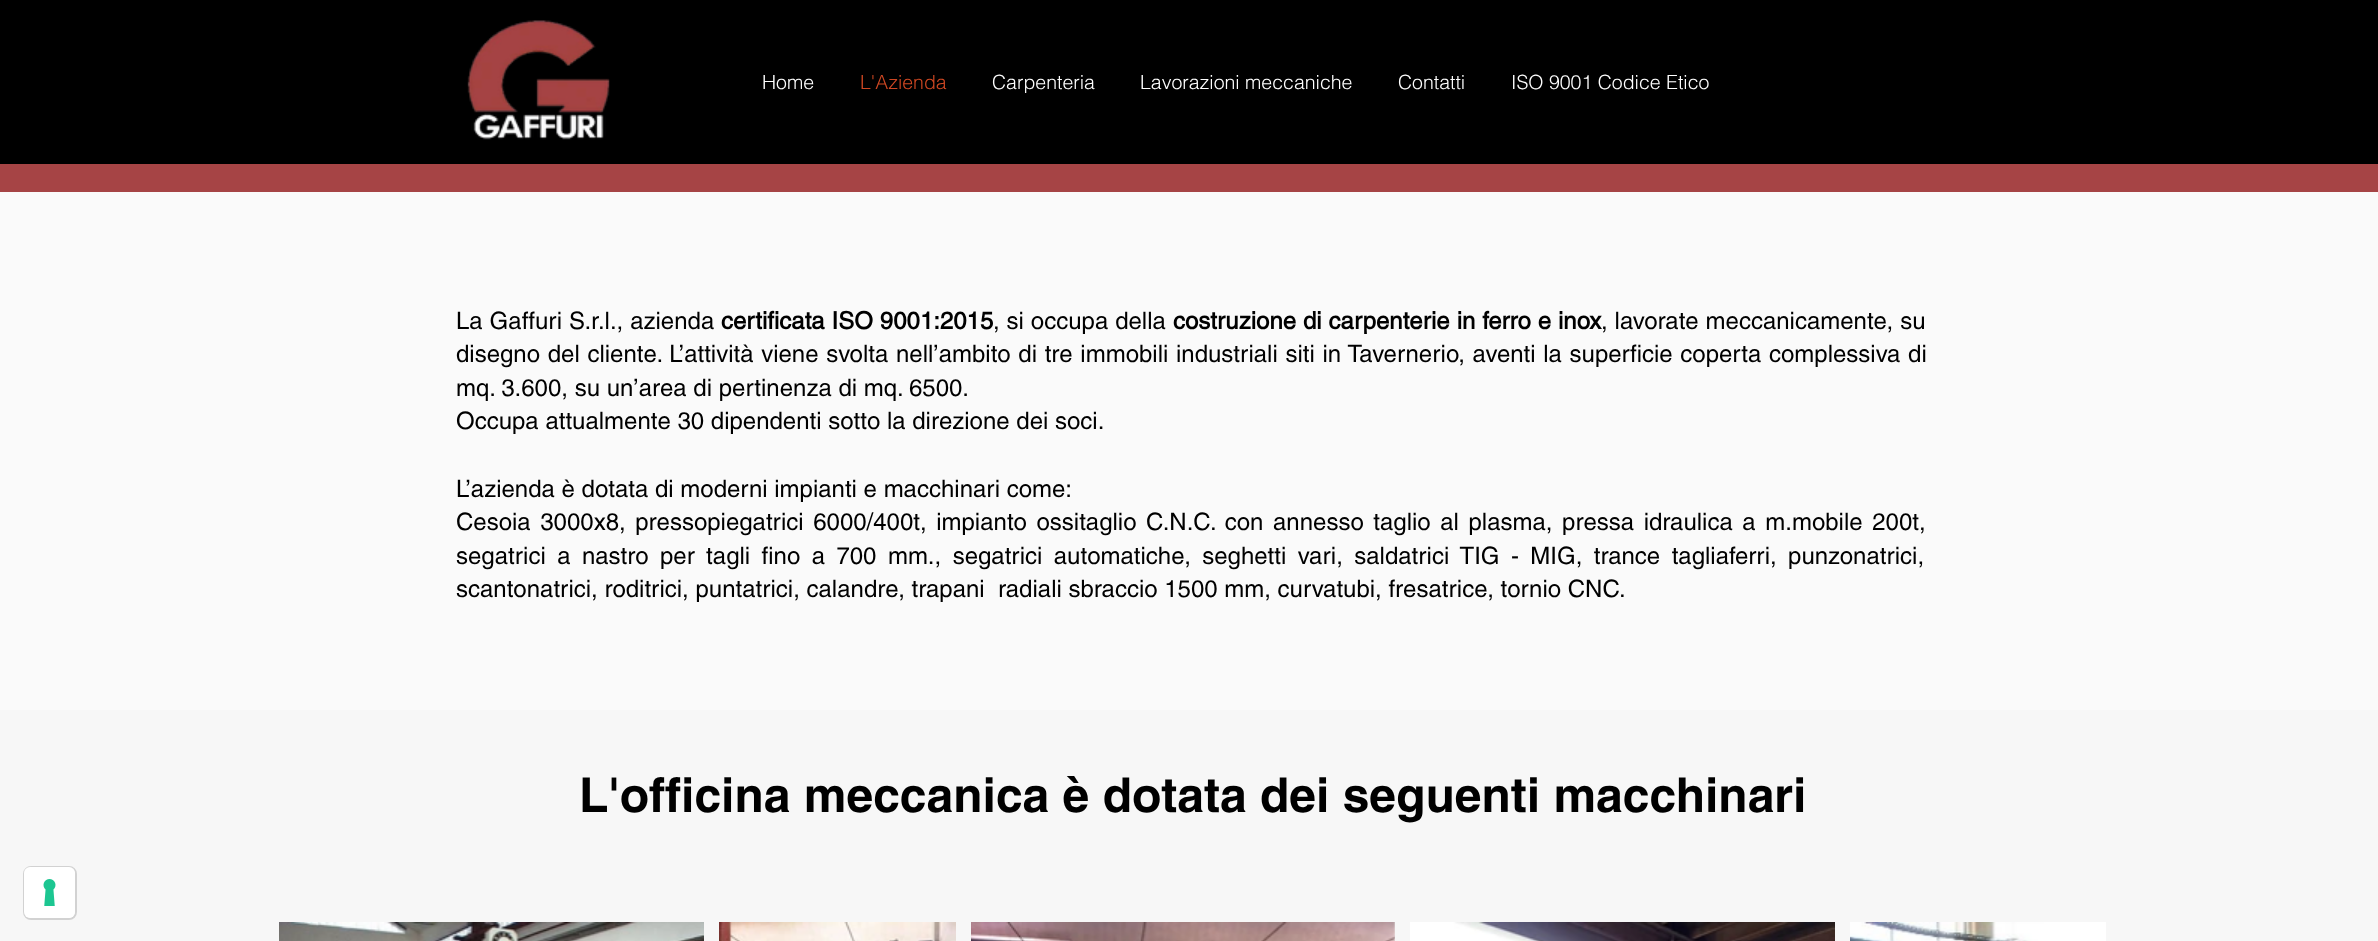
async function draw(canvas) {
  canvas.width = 2378
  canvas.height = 941
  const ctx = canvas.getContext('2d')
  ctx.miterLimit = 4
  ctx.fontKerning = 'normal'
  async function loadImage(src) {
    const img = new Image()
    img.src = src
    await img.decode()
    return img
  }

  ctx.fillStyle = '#f7f7f7'
  ctx.fillRect(0, 0, 2378, 941)
  ctx.fillStyle = '#000'
  ctx.fillRect(0, 0, 2378, 164)
  ctx.drawImage(await loadImage('image0.png'), 467, 20, 143, 120)
  ctx.font = '300 19.5px helvetica'
  ctx.fillStyle = '#fff'
  ctx.fillText('Home', 762, 89)
  ctx.fillStyle = '#ce4722'
  ctx.fillText('L\'Azienda', 860, 89)
  ctx.fillStyle = '#fff'
  ctx.fillText('Carpenteria', 992, 89)
  ctx.fillText('Lavorazioni meccaniche', 1140, 89)
  ctx.fillText('Contatti', 1398, 89)
  ctx.fillText('ISO 9001 Codice Etico', 1511, 89)
  ctx.fillStyle = '#a64445'
  ctx.fillRect(0, 164, 2378, 28)
  ctx.fillStyle = '#fafafa'
  ctx.fillRect(0, 192, 2378, 518)
  ctx.wordSpacing = '0.25px'
  ctx.font = '24px helvetica'
  ctx.fillStyle = '#000'
  ctx.fillText('La Gaffuri S.r.l., azienda', 456, 329)
  ctx.font = 'bold 24px helvetica'
  ctx.fillText('certificata ISO 9001:2015', 721, 329)
  ctx.font = '24px helvetica'
  ctx.fillText(', si occupa della', 993, 329)
  ctx.font = 'bold 24px helvetica'
  ctx.fillText('costruzione di carpenterie in ferro e inox', 1173, 329)
  ctx.font = '24px helvetica'
  ctx.fillText(', lavorate meccanicamente, su', 1601, 329)
  ctx.wordSpacing = '1px'
  ctx.fillText('disegno del cliente. L’attività viene svolta nell’ambito di tre immobili industriali siti in Tavernerio, aventi la superficie coperta complessiva di', 456, 362)
  ctx.wordSpacing = '0px'
  ctx.fillText('mq. 3.600, su un’area di pertinenza di mq. 6500.', 456, 396)
  ctx.fillText('Occupa attualmente 30 dipendenti sotto la direzione dei soci.', 456, 429)
  ctx.fillText('L’azienda è dotata di moderni impianti e macchinari come:', 456, 497)
  ctx.wordSpacing = '2.9px'
  ctx.fillText('Cesoia 3000x8, pressopiegatrici 6000/400t, impianto ossitaglio C.N.C. con annesso taglio al plasma, pressa idraulica a m.mobile 200t,', 456, 530)
  ctx.wordSpacing = '4.75px'
  ctx.fillText('segatrici a nastro per tagli fino a 700 mm., segatrici automatiche, seghetti vari, saldatrici TIG - MIG, trance tagliaferri, punzonatrici,', 456, 564)
  ctx.wordSpacing = '0px'
  ctx.fillText('scantonatrici, roditrici, puntatrici, calandre, trapani  radiali sbraccio 1500 mm, curvatubi, fresatrice, tornio CNC.', 456, 597)
  ctx.font = 'bold 48px "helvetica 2"'
  ctx.fillText('L\'officina meccanica è dotata dei seguenti macchinari', 579, 812)
  ctx.drawImage(await loadImage('image1.png'), 279, 922, 425, 19)
  ctx.drawImage(await loadImage('image2.png'), 719, 922, 237, 19)
  ctx.drawImage(await loadImage('image3.png'), 971, 922, 424, 19)
  ctx.drawImage(await loadImage('image4.png'), 1410, 922, 425, 19)
  ctx.drawImage(await loadImage('image5.png'), 1850, 922, 256, 19)
  ctx.beginPath()
  ctx.roundRect(24, 867, 52, 52, 7)
  ctx.strokeStyle = '#d2d2d2'
  ctx.lineWidth = 2
  ctx.stroke()
  ctx.fillStyle = '#fff'
  ctx.beginPath()
  ctx.roundRect(24, 867, 51, 51, 6)
  ctx.fill()
  ctx.drawImage(await loadImage('image6.png'), 43, 879, 13, 27)
}

draw(document.querySelector('canvas'))
